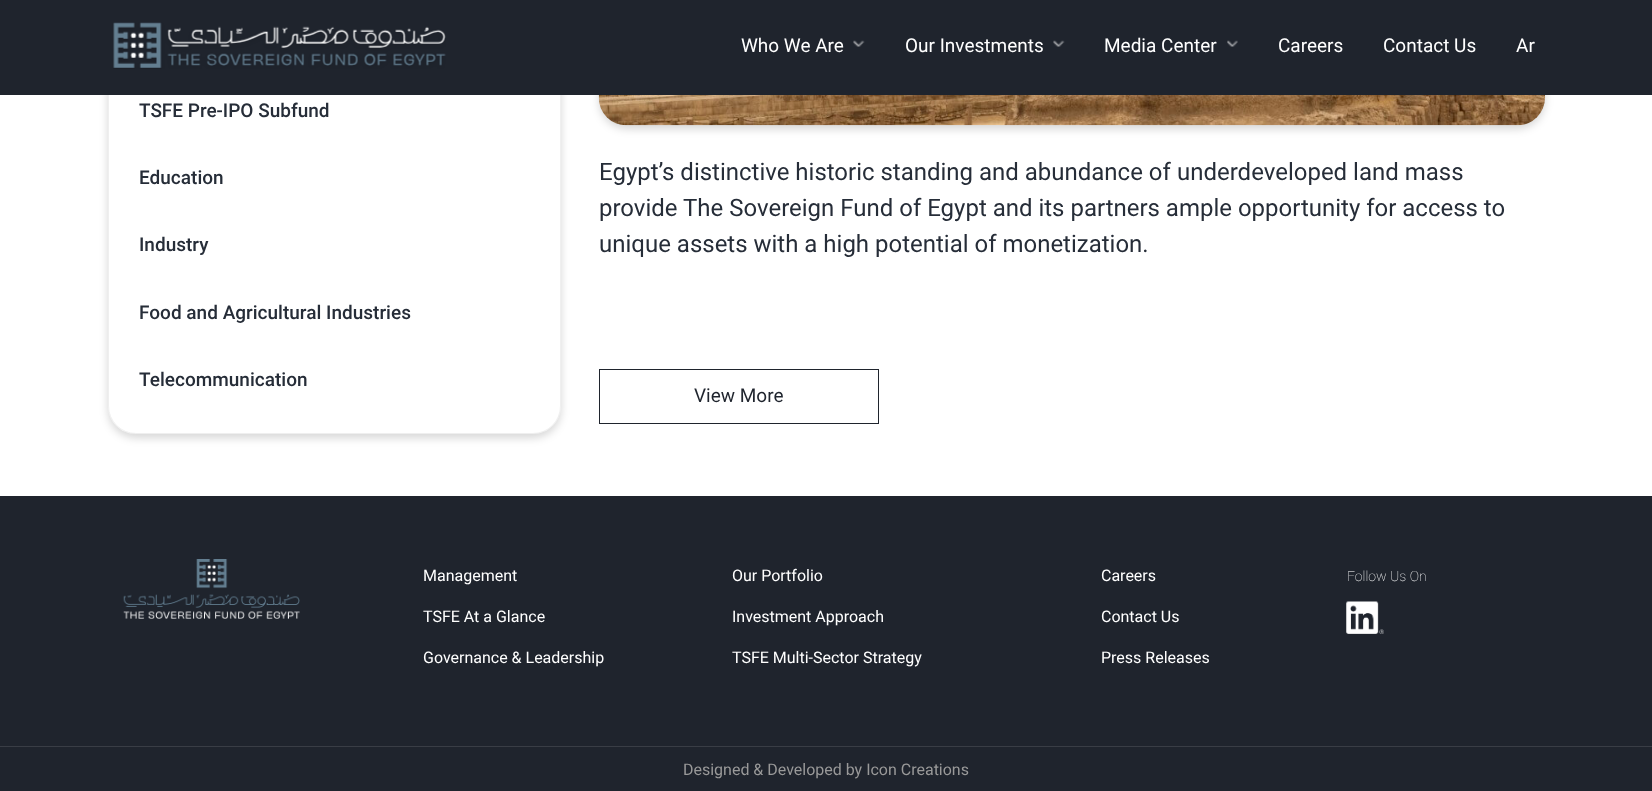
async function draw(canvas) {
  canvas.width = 1652
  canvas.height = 791
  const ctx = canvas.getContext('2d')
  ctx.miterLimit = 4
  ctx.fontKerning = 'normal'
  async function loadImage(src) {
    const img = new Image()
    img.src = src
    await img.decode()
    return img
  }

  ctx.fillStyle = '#fff'
  ctx.fillRect(0, 0, 1652, 791)
  ctx.save()
  ctx.beginPath()
  ctx.moveTo(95, 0)
  ctx.lineTo(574, 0)
  ctx.lineTo(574, 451)
  ctx.lineTo(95, 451)
  ctx.closePath()
  ctx.moveTo(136, -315)
  ctx.lineTo(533, -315)
  ctx.bezierCurveTo(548.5, -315, 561, -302.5, 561, -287)
  ctx.lineTo(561, 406)
  ctx.bezierCurveTo(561, 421.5, 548.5, 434, 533, 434)
  ctx.lineTo(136, 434)
  ctx.bezierCurveTo(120.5, 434, 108, 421.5, 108, 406)
  ctx.lineTo(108, -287)
  ctx.bezierCurveTo(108, -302.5, 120.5, -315, 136, -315)
  ctx.closePath()
  ctx.clip('evenodd')
  ctx.fillStyle = '#00000029'
  ctx.filter = 'blur(4px)'
  ctx.beginPath()
  ctx.roundRect(108, -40, 453, 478, 28)
  ctx.fill()
  ctx.filter = 'none'
  ctx.restore()
  ctx.beginPath()
  ctx.roundRect(108.5, -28.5, 452, 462, 27.5)
  ctx.strokeStyle = '#7070701c'
  ctx.stroke()
  ctx.fillStyle = '#00000029'
  ctx.filter = 'blur(4px)'
  ctx.beginPath()
  ctx.roundRect(599, -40, 946, 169, 28)
  ctx.fill()
  ctx.filter = 'none'
  ctx.fillStyle = '#1f242d'
  ctx.fillRect(0, 0, 1652, 95)
  ctx.drawImage(await loadImage('image0.png'), 113, 22, 333, 47)
  ctx.font = '19px Roboto'
  ctx.fillStyle = '#fff'
  ctx.fillText('Who We Are', 741, 52)
  ctx.drawImage(await loadImage('image1.png'), 853, 40, 12, 7)
  ctx.fillText('Our Investments', 905, 52)
  ctx.drawImage(await loadImage('image1.png'), 1053, 40, 12, 7)
  ctx.fillText('Media Center', 1104, 52)
  ctx.drawImage(await loadImage('image2.png'), 1227, 40, 11, 7)
  ctx.fillText('Careers', 1278, 52)
  ctx.fillText('Contact Us', 1383, 52)
  ctx.fillText('Ar', 1516, 52)
  ctx.font = '500 19px Roboto'
  ctx.fillStyle = '#262d38'
  ctx.fillText('TSFE Pre-IPO Subfund', 139, 117)
  ctx.fillText('Education', 139, 184)
  ctx.fillText('Industry', 139, 251)
  ctx.fillText('Food and Agricultural Industries', 139, 319)
  ctx.fillText('Telecommunication', 139, 386)
  ctx.drawImage(await loadImage('image3.png'), 598, 95, 947, 31)
  ctx.font = '24px Roboto'
  ctx.fillText('Egypt’s distinctive historic standing and abundance of', 599, 180)
  ctx.fillText('underdeveloped land mass', 1177, 180)
  ctx.fillText('provide The Sovereign Fund of Egypt and its partners ample opportunity for access to', 599, 216)
  ctx.fillText('unique assets with a high potential of monetization.', 599, 252)
  ctx.strokeStyle = '#1f242d'
  ctx.strokeRect(599.5, 369.5, 279, 54)
  ctx.font = '19px Roboto'
  ctx.fillStyle = '#1f242d'
  ctx.fillText('View More', 694, 402)
  ctx.fillRect(0, 496, 1652, 250)
  ctx.drawImage(await loadImage('image4.png'), 123, 559, 177, 60)
  ctx.font = '16px Roboto'
  ctx.fillStyle = '#fff'
  ctx.fillText('Management', 423, 581)
  ctx.fillText('TSFE At a Glance', 423, 622)
  ctx.fillText('Governance & Leadership', 423, 663)
  ctx.fillText('Our Portfolio', 732, 581)
  ctx.fillText('Investment Approach', 732, 622)
  ctx.fillText('TSFE Multi-Sector Strategy', 732, 663)
  ctx.fillText('Careers', 1101, 581)
  ctx.fillText('Contact Us', 1101, 622)
  ctx.fillText('Press Releases', 1101, 663)
  ctx.font = '100 14px Roboto'
  ctx.fillText('Follow Us On', 1347, 581)
  ctx.drawImage(await loadImage('image5.png'), 1346, 601, 38, 33)
  ctx.fillStyle = '#1f242d'
  ctx.fillRect(0, 747, 1652, 44)
  ctx.fillStyle = '#393d45'
  ctx.fillRect(0, 746, 1652, 1)
  ctx.font = '16px Roboto'
  ctx.fillStyle = '#999'
  ctx.fillText('Designed & Developed by Icon Creations', 683, 775)
}

draw(document.querySelector('canvas'))
